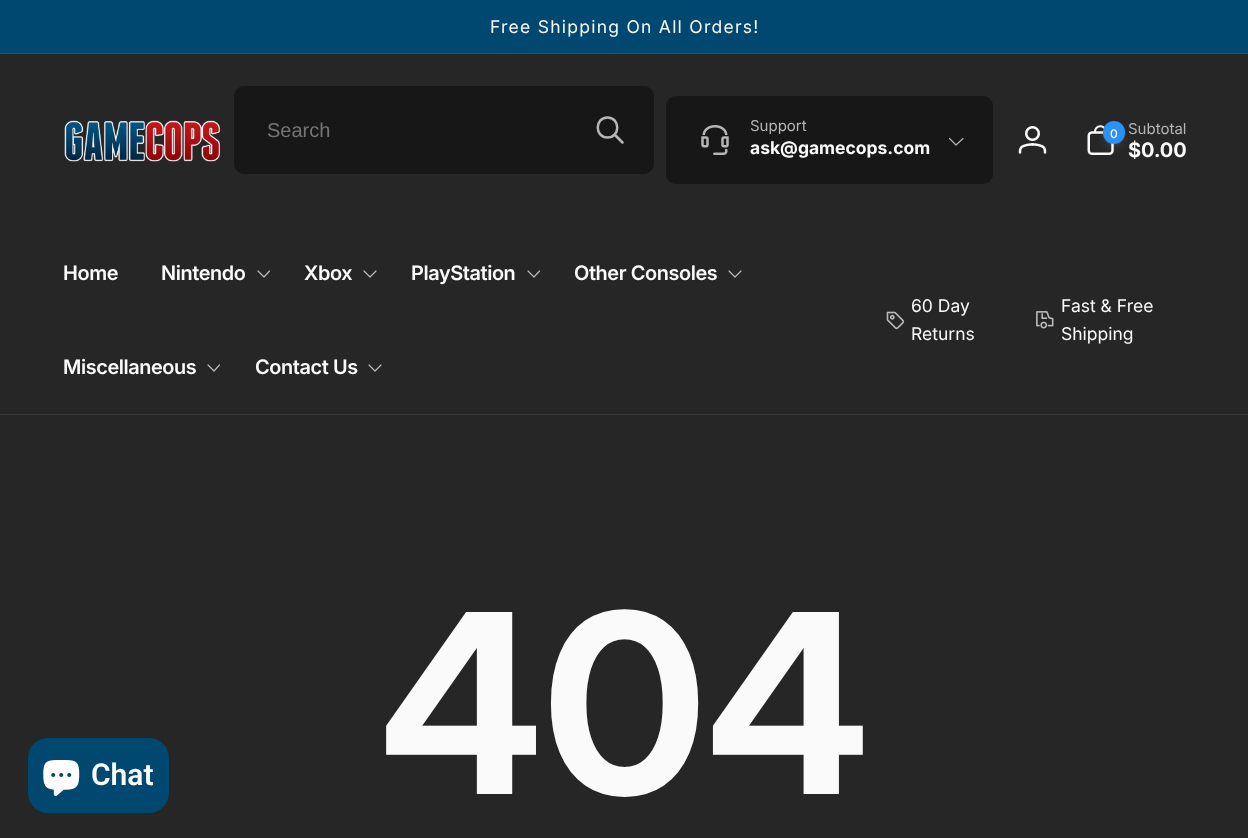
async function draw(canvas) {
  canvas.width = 1248
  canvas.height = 838
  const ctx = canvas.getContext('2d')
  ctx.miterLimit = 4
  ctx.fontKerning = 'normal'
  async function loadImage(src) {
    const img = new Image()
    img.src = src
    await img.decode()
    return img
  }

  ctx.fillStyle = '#262626'
  ctx.fillRect(0, 0, 1248, 838)
  ctx.fillStyle = '#00486f'
  ctx.fillRect(0, 0, 1248, 53)
  ctx.fillStyle = '#14577b'
  ctx.fillRect(0, 53, 1248, 1)
  ctx.letterSpacing = '1.25px'
  ctx.font = '17.5px Inter'
  ctx.fillStyle = '#fafafa'
  ctx.fillText('Free Shipping On All Orders!', 490, 33)
  ctx.fillStyle = '#373737'
  ctx.fillRect(0, 414, 1248, 1)
  ctx.drawImage(await loadImage('image0.png'), 64, 120, 156, 42)
  ctx.fillStyle = '#171717'
  ctx.beginPath()
  ctx.roundRect(234, 86, 420, 88, 10)
  ctx.fill()
  ctx.letterSpacing = '0px'
  ctx.font = '20px Liberation Sans'
  ctx.fillStyle = '#757575'
  ctx.fillText('Search', 267, 137)
  ctx.beginPath()
  ctx.moveTo(622.5, 142.5)
  ctx.lineTo(614.5, 134.5)
  ctx.moveTo(607.5, 137.5)
  ctx.bezierCurveTo(620.5, 137.5, 620.5, 117.5, 607.5, 117.5)
  ctx.bezierCurveTo(594.5, 117.5, 594.5, 137.5, 607.5, 137.5)
  ctx.closePath()
  ctx.strokeStyle = '#b6b6b6'
  ctx.lineWidth = 2.5
  ctx.lineCap = 'round'
  ctx.lineJoin = 'round'
  ctx.stroke()
  ctx.fillStyle = '#171717'
  ctx.beginPath()
  ctx.roundRect(666, 96, 327, 88, 10)
  ctx.fill()
  ctx.drawImage(await loadImage('image1.png'), 701, 125, 28, 30)
  ctx.font = '15px Inter'
  ctx.fillStyle = '#b6b6b6'
  ctx.fillText('Support', 750, 131)
  ctx.font = 'bold 17.5px "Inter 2"'
  ctx.fillStyle = '#fafafa'
  ctx.fillText('ask@gamecops.com', 750, 154)
  ctx.beginPath()
  ctx.moveTo(963, 138.5)
  ctx.lineTo(956, 145)
  ctx.lineTo(949.5, 138.5)
  ctx.lineWidth = 1.2
  ctx.stroke()
  ctx.drawImage(await loadImage('image2.png'), 1018, 126, 29, 28)
  ctx.drawImage(await loadImage('image3.png'), 1087, 125, 27, 30)
  ctx.fillStyle = '#fafafa0f'
  ctx.filter = 'blur(2.5px)'
  ctx.beginPath()
  ctx.roundRect(1104, 125, 20, 20, 10)
  ctx.fill()
  ctx.filter = 'none'
  ctx.fillStyle = '#fafafa1a'
  ctx.filter = 'blur(4px)'
  ctx.beginPath()
  ctx.roundRect(1104, 128, 20, 20, 10)
  ctx.fill()
  ctx.filter = 'none'
  ctx.fillStyle = '#2c91f4'
  ctx.beginPath()
  ctx.roundRect(1103, 121, 22, 23, 11)
  ctx.fill()
  ctx.font = '500 12px Inter'
  ctx.fillStyle = '#fafafa'
  ctx.fillText('0', 1110, 138)
  ctx.font = '15px Inter'
  ctx.fillStyle = '#b6b6b6'
  ctx.fillText('Subtotal', 1128, 134)
  ctx.font = 'bold 20px "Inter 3"'
  ctx.fillStyle = '#fafafa'
  ctx.fillText('$0.00', 1128, 157)
  ctx.letterSpacing = '-0.4px'
  ctx.font = '600 20px Inter'
  ctx.fillText('Home', 63, 280)
  ctx.fillText('Nintendo', 161, 280)
  ctx.beginPath()
  ctx.moveTo(269.5, 271)
  ctx.lineTo(264, 277)
  ctx.lineTo(258, 271)
  ctx.strokeStyle = '#bababa'
  ctx.stroke()
  ctx.fillText('Xbox', 304, 280)
  ctx.beginPath()
  ctx.moveTo(376, 271)
  ctx.lineTo(370, 277)
  ctx.lineTo(364, 271)
  ctx.stroke()
  ctx.fillText('PlayStation', 411, 280)
  ctx.beginPath()
  ctx.moveTo(539.5, 271)
  ctx.lineTo(534, 277)
  ctx.lineTo(528, 271)
  ctx.stroke()
  ctx.fillText('Other Consoles', 574, 280)
  ctx.beginPath()
  ctx.moveTo(741, 271)
  ctx.lineTo(735, 277)
  ctx.lineTo(729, 271)
  ctx.stroke()
  ctx.fillText('Miscellaneous', 63, 374)
  ctx.beginPath()
  ctx.moveTo(219.5, 365)
  ctx.lineTo(214, 371)
  ctx.lineTo(208, 365)
  ctx.stroke()
  ctx.fillText('Contact Us', 255, 374)
  ctx.beginPath()
  ctx.moveTo(381, 365)
  ctx.lineTo(375, 371)
  ctx.lineTo(369, 365)
  ctx.stroke()
  ctx.drawImage(await loadImage('image4.png'), 886, 311, 19, 19)
  ctx.letterSpacing = '0px'
  ctx.font = '17.5px Inter'
  ctx.fillText('60 Day', 911, 312)
  ctx.fillText('Returns', 911, 340)
  ctx.drawImage(await loadImage('image5.png'), 1036, 311, 18, 18)
  ctx.fillText('Fast & Free', 1061, 312)
  ctx.fillText('Shipping', 1061, 340)
  ctx.fillStyle = '#00486f'
  ctx.beginPath()
  ctx.roundRect(28, 738, 141, 75, 20)
  ctx.fill()
  ctx.drawImage(await loadImage('image6.png'), 43, 760, 37, 36)
  ctx.font = '600 30px Roboto'
  ctx.fillStyle = '#fafafa'
  ctx.fillText('Chat', 91, 785)
  ctx.font = 'bold 250px Inter'
  ctx.fillText('404', 379, 794)
}

draw(document.querySelector('canvas'))
